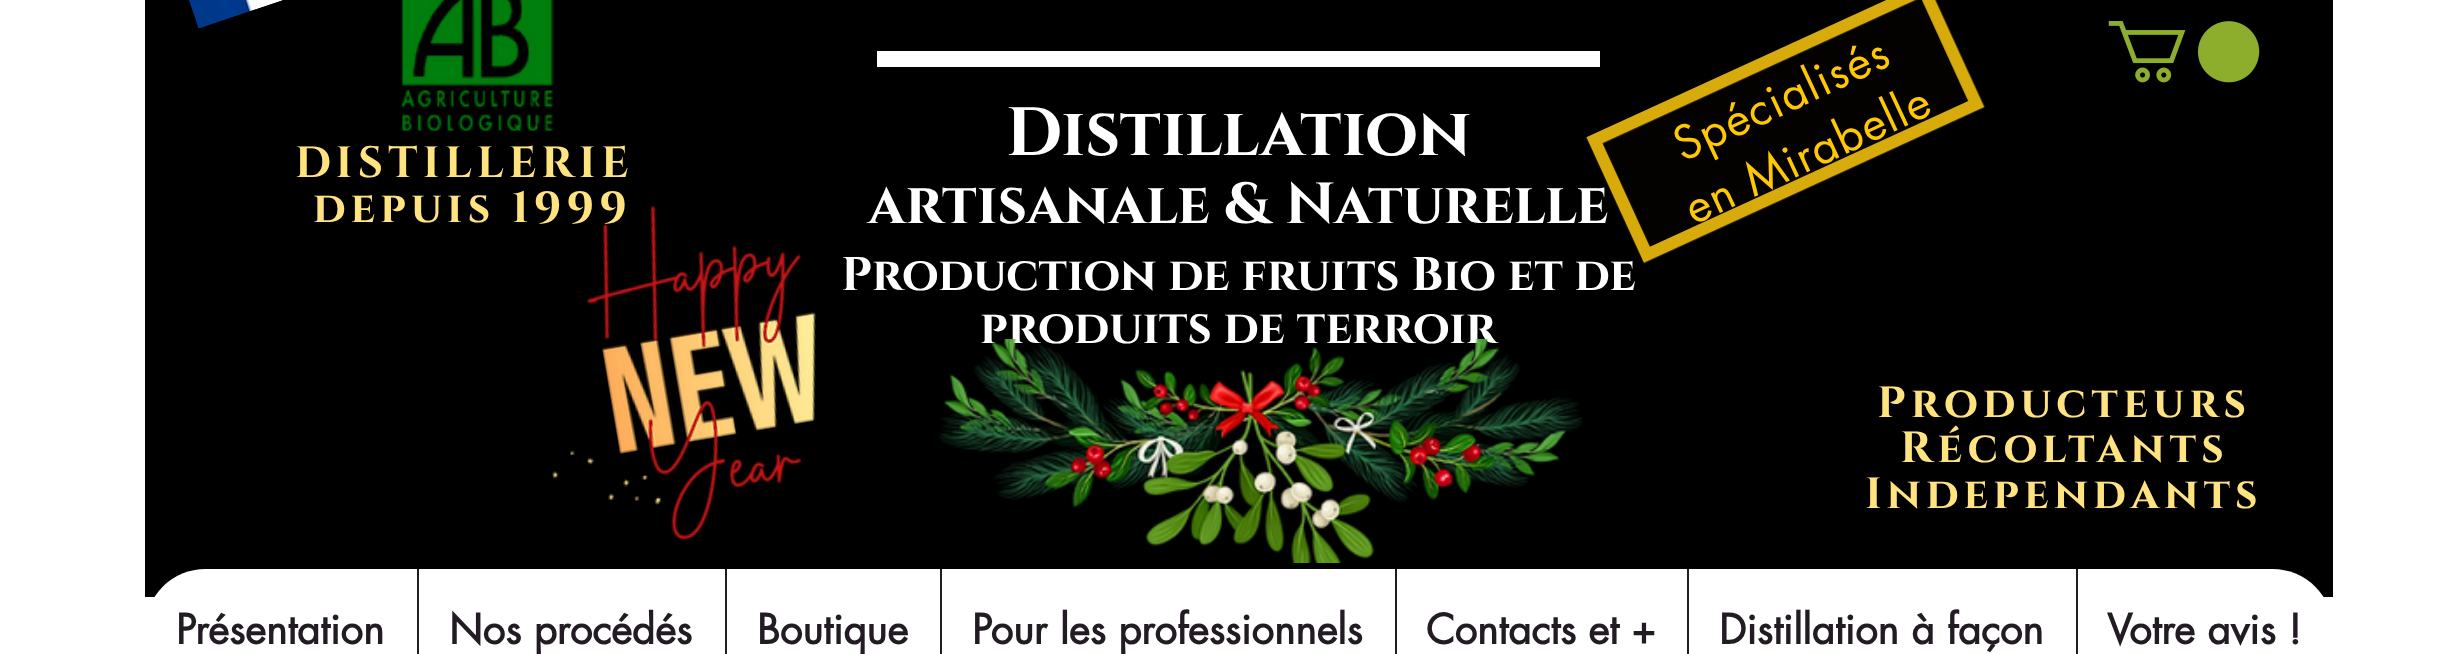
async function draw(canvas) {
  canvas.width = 2451
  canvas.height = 654
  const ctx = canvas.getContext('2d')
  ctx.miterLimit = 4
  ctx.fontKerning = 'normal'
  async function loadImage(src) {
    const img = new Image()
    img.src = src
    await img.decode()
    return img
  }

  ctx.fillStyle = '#fff'
  ctx.fillRect(0, 0, 2451, 654)
  ctx.fillStyle = '#000'
  ctx.fillRect(145, 0, 2188, 597)
  ctx.drawImage(await loadImage('image0.png'), 189, 0, 94, 29)
  ctx.drawImage(await loadImage('image1.png'), 400, 0, 154, 131)
  ctx.drawImage(await loadImage('image2.png'), 1585, 0, 400, 264)
  ctx.drawImage(await loadImage('image3.png'), 2108, 21, 152, 62)
  ctx.letterSpacing = '5.25px'
  ctx.font = 'bold 43.75px Cinzel'
  ctx.fillStyle = '#ffe380'
  ctx.fillText('DISTILLERIE', 295, 177)
  ctx.fillText('depuis 1999', 313, 222)
  ctx.fillStyle = '#fff'
  ctx.fillRect(877, 51, 723, 16)
  ctx.letterSpacing = '0px'
  ctx.font = 'bold 68.25px Cinzel'
  ctx.fillText('Distillation', 1006, 155)
  ctx.font = 'bold 57.75px Cinzel'
  ctx.fillText('artisanale & Naturelle', 868, 223)
  ctx.font = 'bold 47.25px Cinzel'
  ctx.fillText('Production de fruits Bio et de', 841, 290)
  ctx.fillText('produits de terroir', 980, 343)
  ctx.letterSpacing = '1.4px'
  ctx.font = '45.5px futura'
  ctx.fillStyle = '#ffc802'
  ctx.save()
  ctx.translate(1683, 162)
  ctx.rotate(-25 * Math.PI / 180)
  ctx.fillText('Spécialisés', 0, 0)
  ctx.restore()
  ctx.save()
  ctx.translate(1694, 225)
  ctx.rotate(-25 * Math.PI / 180)
  ctx.fillText('en Mirabelle', 0, 0)
  ctx.restore()
  ctx.drawImage(await loadImage('image4.png'), 552, 205, 264, 336)
  ctx.drawImage(await loadImage('image5.png'), 939, 339, 644, 224)
  ctx.letterSpacing = '5.25px'
  ctx.font = 'bold 43.75px Cinzel'
  ctx.fillStyle = '#ffe380'
  ctx.fillText('Producteurs', 1877, 417)
  ctx.fillText('Récoltants', 1900, 462)
  ctx.fillText('Independants', 1865, 508)
  ctx.fillStyle = '#fff'
  ctx.beginPath()
  ctx.roundRect(145, 569, 2188, 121, 60.5)
  ctx.fill()
  ctx.letterSpacing = '0px'
  ctx.font = 'bold 40.25px futura'
  ctx.fillStyle = '#221b23'
  ctx.fillText('Présentation', 176, 644)
  ctx.fillRect(417, 569, 2, 85)
  ctx.fillText('Nos procédés', 449, 644)
  ctx.fillRect(725, 569, 2, 85)
  ctx.fillText('Boutique', 757, 644)
  ctx.fillRect(940, 569, 2, 85)
  ctx.fillText('Pour les professionnels', 972, 644)
  ctx.fillRect(1395, 569, 2, 85)
  ctx.fillText('Contacts et +', 1426, 644)
  ctx.fillRect(1687, 569, 2, 85)
  ctx.fillText('Distillation à façon', 1719, 644)
  ctx.fillRect(2076, 569, 2, 85)
  ctx.fillText('Votre avis !', 2107, 644)
}

draw(document.querySelector('canvas'))
